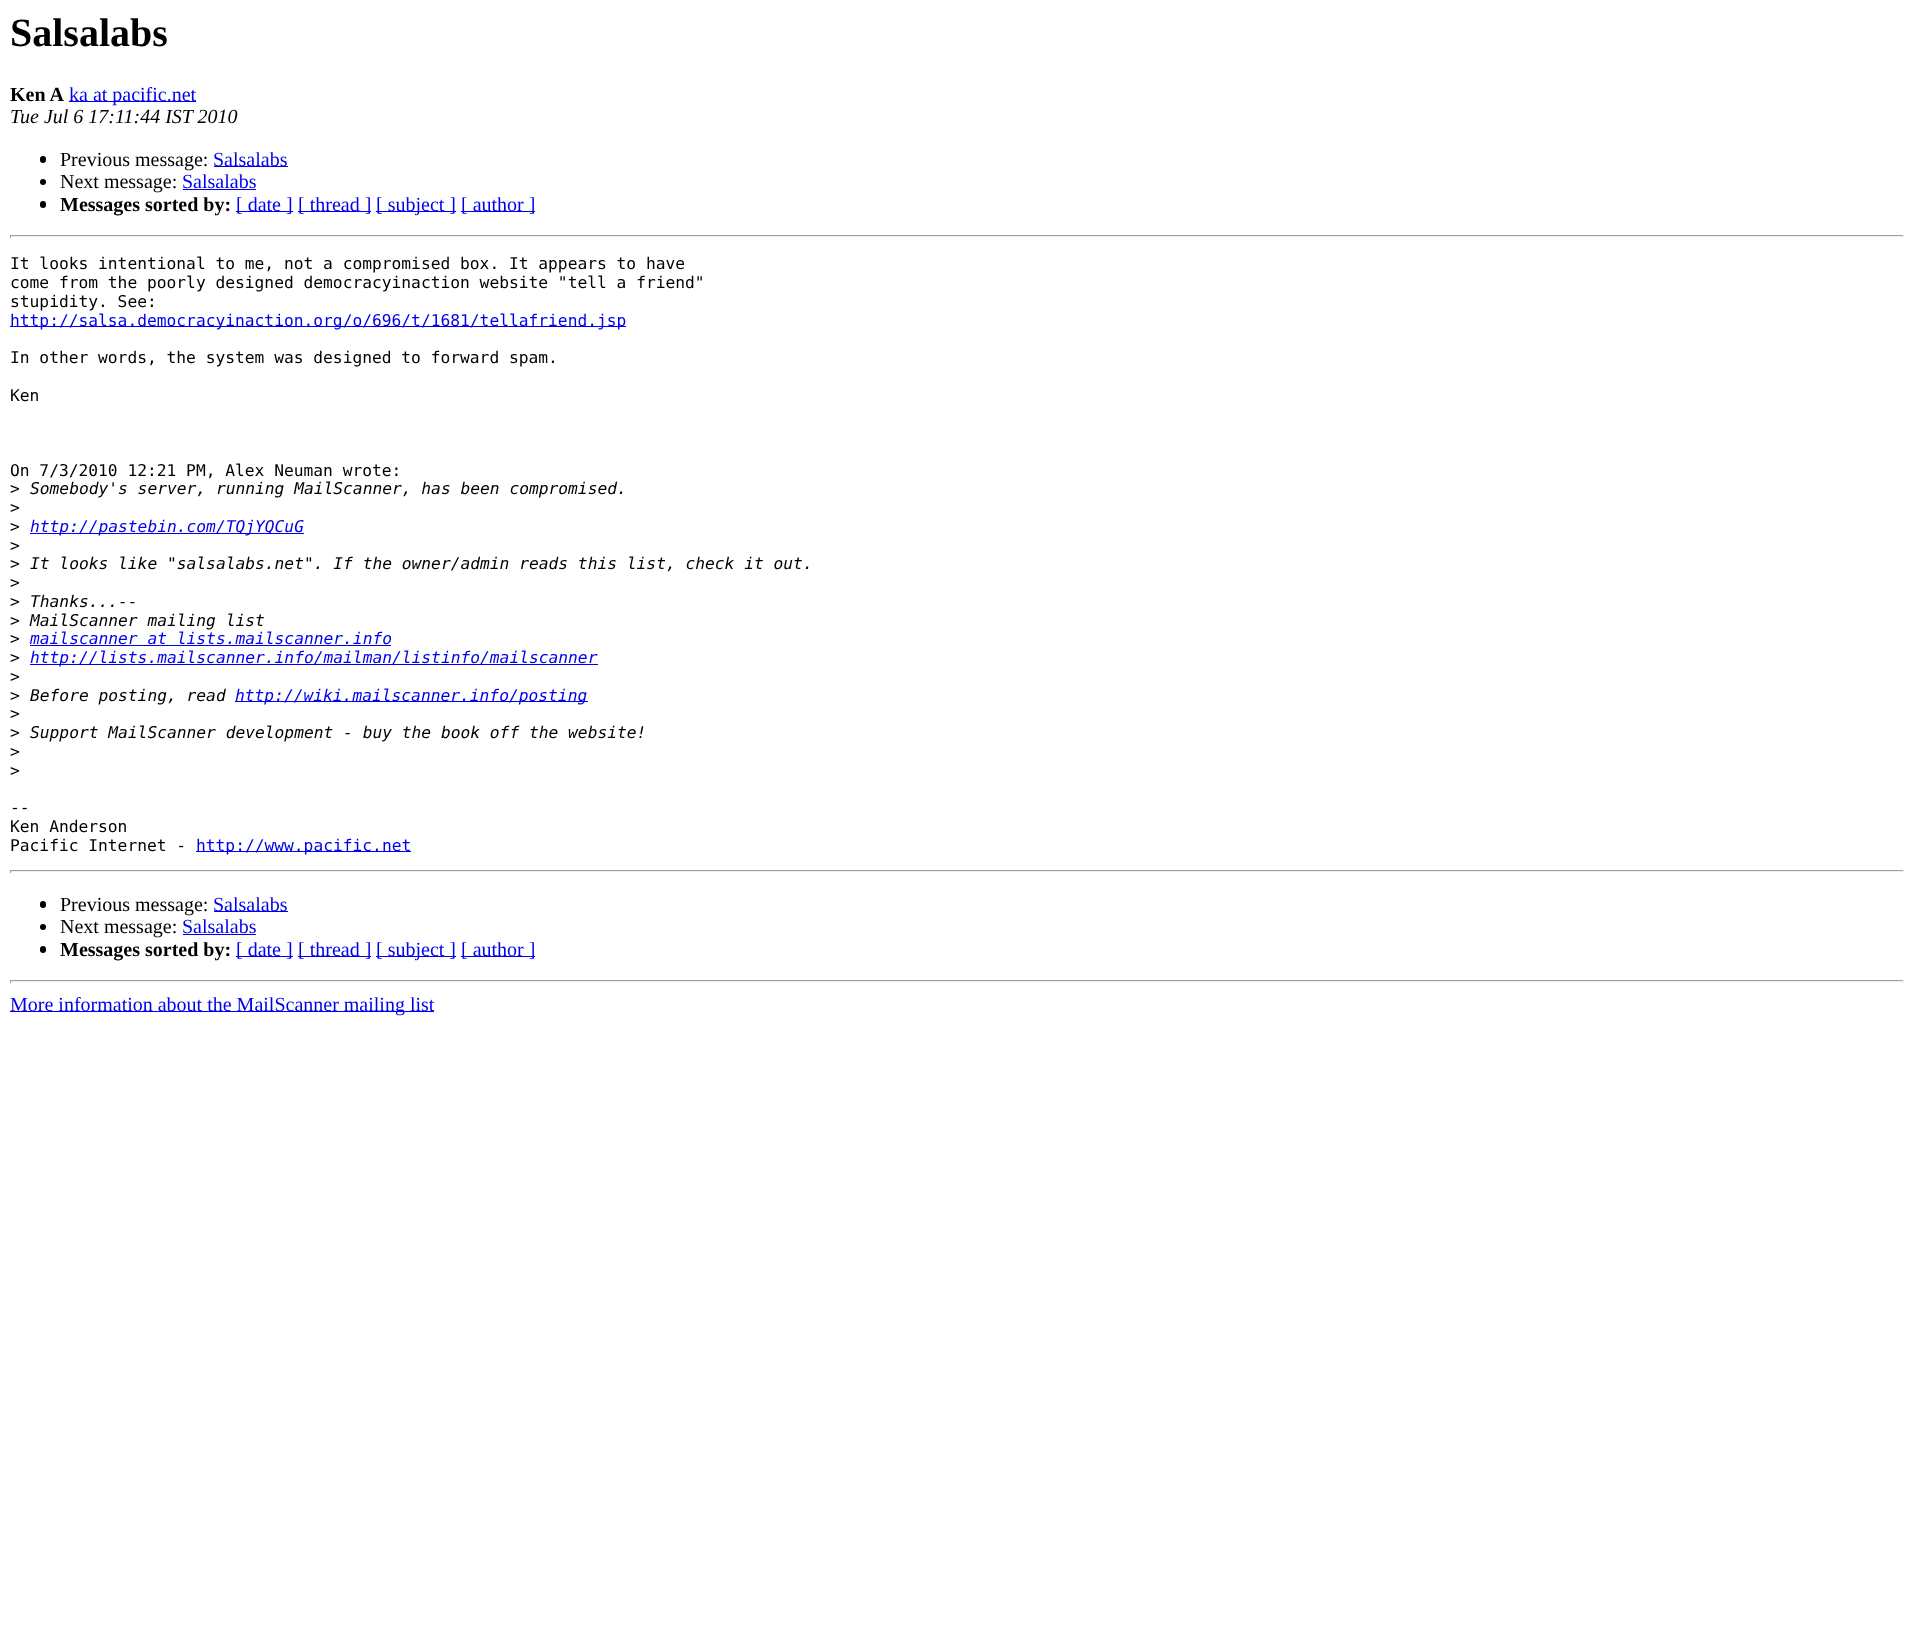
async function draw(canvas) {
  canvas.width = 1913
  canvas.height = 1643
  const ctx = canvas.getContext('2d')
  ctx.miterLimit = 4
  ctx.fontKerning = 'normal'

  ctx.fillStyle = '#fff'
  ctx.fillRect(0, 0, 1913, 1643)
  ctx.font = 'bold 40px Liberation Serif'
  ctx.fillStyle = '#000'
  ctx.fillText('Salsalabs', 10, 46)
  ctx.font = 'bold 20px Liberation Serif'
  ctx.fillText('Ken A', 10, 101)
  ctx.fillStyle = '#00e'
  ctx.fillRect(69, 101, 127, 1)
  ctx.font = '20px Liberation Serif'
  ctx.fillText('ka at pacific.net', 69, 101)
  ctx.font = 'italic 20px Liberation Serif'
  ctx.fillStyle = '#000'
  ctx.fillText('Tue Jul 6 17:11:44 IST 2010', 10, 123)
  ctx.beginPath()
  ctx.roundRect(40, 156, 6, 7, 3)
  ctx.fill()
  ctx.font = '20px Liberation Serif'
  ctx.fillText('Previous message:', 60, 166)
  ctx.fillStyle = '#00e'
  ctx.fillRect(214, 166, 74, 1)
  ctx.fillText('Salsalabs', 213, 166)
  ctx.fillStyle = '#000'
  ctx.beginPath()
  ctx.arc(43, 182, 3, 0, 2 * Math.PI)
  ctx.fill()
  ctx.fillText('Next message:', 60, 188)
  ctx.fillStyle = '#00e'
  ctx.fillText('Salsalabs', 182, 188)
  ctx.fillRect(183, 189, 73, 1)
  ctx.fillStyle = '#000'
  ctx.beginPath()
  ctx.roundRect(40, 201, 6, 7, 3)
  ctx.fill()
  ctx.font = 'bold 20px Liberation Serif'
  ctx.fillText('Messages sorted by:', 60, 211)
  ctx.fillStyle = '#00e'
  ctx.fillRect(236, 211, 57, 1)
  ctx.font = '20px Liberation Serif'
  ctx.fillText('[ date ]', 236, 211)
  ctx.fillRect(298, 211, 73, 1)
  ctx.fillText('[ thread ]', 298, 211)
  ctx.fillRect(376, 211, 80, 1)
  ctx.fillText('[ subject ]', 376, 211)
  ctx.fillRect(461, 211, 74, 1)
  ctx.fillText('[ author ]', 461, 211)
  ctx.fillStyle = '#9f9f9f'
  ctx.fillRect(10, 235, 1894, 1)
  ctx.fillStyle = '#eee'
  ctx.fillRect(1903, 235, 1, 3)
  ctx.fillRect(10, 236, 1894, 1)
  ctx.fillStyle = '#9f9f9f'
  ctx.fillRect(10, 235, 1, 3)
  ctx.font = '16.25px DejaVu Sans Mono'
  ctx.fillStyle = '#000'
  ctx.fillText('It looks intentional to me, not a compromised box. It appears to have', 10, 269)
  ctx.fillText('come from the poorly designed democracyinaction website "tell a friend"', 10, 288)
  ctx.fillText('stupidity. See:', 10, 307)
  ctx.fillStyle = '#00e'
  ctx.fillRect(10, 326, 616, 1)
  ctx.fillText('http://salsa.democracyinaction.org/o/696/t/1681/tellafriend.jsp', 10, 326)
  ctx.fillStyle = '#000'
  ctx.fillText('In other words, the system was designed to forward spam.', 10, 363)
  ctx.fillText('Ken', 10, 401)
  ctx.fillText('On 7/3/2010 12:21 PM, Alex Neuman wrote:', 10, 476)
  ctx.fillText('>', 10, 494)
  ctx.font = 'italic 16.25px DejaVu Sans Mono'
  ctx.fillText('Somebody\'s server, running MailScanner, has been compromised.', 30, 494)
  ctx.font = '16.25px DejaVu Sans Mono'
  ctx.fillText('>', 10, 513)
  ctx.fillText('>', 10, 532)
  ctx.fillStyle = '#00e'
  ctx.fillRect(30, 533, 274, 1)
  ctx.font = 'italic 16.25px DejaVu Sans Mono'
  ctx.fillText('http://pastebin.com/TQjYQCuG', 30, 532)
  ctx.font = '16.25px DejaVu Sans Mono'
  ctx.fillStyle = '#000'
  ctx.fillText('>', 10, 551)
  ctx.fillText('>', 10, 569)
  ctx.font = 'italic 16.25px DejaVu Sans Mono'
  ctx.fillText('It looks like "salsalabs.net". If the owner/admin reads this list, check it out.', 30, 569)
  ctx.font = '16.25px DejaVu Sans Mono'
  ctx.fillText('>', 10, 588)
  ctx.fillText('>', 10, 607)
  ctx.font = 'italic 16.25px DejaVu Sans Mono'
  ctx.fillText('Thanks...--', 30, 607)
  ctx.font = '16.25px DejaVu Sans Mono'
  ctx.fillText('>', 10, 626)
  ctx.font = 'italic 16.25px DejaVu Sans Mono'
  ctx.fillText('MailScanner mailing list', 30, 626)
  ctx.font = '16.25px DejaVu Sans Mono'
  ctx.fillText('>', 10, 644)
  ctx.font = 'italic 16.25px DejaVu Sans Mono'
  ctx.fillStyle = '#00e'
  ctx.fillText('mailscanner at lists.mailscanner.info', 30, 644)
  ctx.fillRect(30, 645, 361, 1)
  ctx.font = '16.25px DejaVu Sans Mono'
  ctx.fillStyle = '#000'
  ctx.fillText('>', 10, 663)
  ctx.fillStyle = '#00e'
  ctx.fillRect(30, 664, 568, 1)
  ctx.font = 'italic 16.25px DejaVu Sans Mono'
  ctx.fillText('http://lists.mailscanner.info/mailman/listinfo/mailscanner', 30, 663)
  ctx.font = '16.25px DejaVu Sans Mono'
  ctx.fillStyle = '#000'
  ctx.fillText('>', 10, 682)
  ctx.fillText('>', 10, 701)
  ctx.font = 'italic 16.25px DejaVu Sans Mono'
  ctx.fillText('Before posting, read', 30, 701)
  ctx.fillStyle = '#00e'
  ctx.fillRect(235, 701, 353, 1)
  ctx.fillText('http://wiki.mailscanner.info/posting', 235, 701)
  ctx.font = '16.25px DejaVu Sans Mono'
  ctx.fillStyle = '#000'
  ctx.fillText('>', 10, 719)
  ctx.fillText('>', 10, 738)
  ctx.font = 'italic 16.25px DejaVu Sans Mono'
  ctx.fillText('Support MailScanner development - buy the book off the website!', 30, 738)
  ctx.font = '16.25px DejaVu Sans Mono'
  ctx.fillText('>', 10, 757)
  ctx.fillText('>', 10, 776)
  ctx.fillText('--', 10, 813)
  ctx.fillText('Ken Anderson', 10, 832)
  ctx.fillText('Pacific Internet -', 10, 851)
  ctx.fillStyle = '#00e'
  ctx.fillRect(196, 851, 215, 1)
  ctx.fillText('http://www.pacific.net', 196, 851)
  ctx.fillStyle = '#9f9f9f'
  ctx.fillRect(10, 870, 1894, 1)
  ctx.fillStyle = '#eee'
  ctx.fillRect(1903, 870, 1, 3)
  ctx.fillRect(10, 871, 1894, 1)
  ctx.fillStyle = '#9f9f9f'
  ctx.fillRect(10, 870, 1, 3)
  ctx.fillStyle = '#000'
  ctx.beginPath()
  ctx.roundRect(40, 901, 6, 7, 3)
  ctx.fill()
  ctx.font = '20px Liberation Serif'
  ctx.fillText('Previous message:', 60, 911)
  ctx.fillStyle = '#00e'
  ctx.fillRect(214, 911, 74, 1)
  ctx.fillText('Salsalabs', 213, 911)
  ctx.fillStyle = '#000'
  ctx.beginPath()
  ctx.arc(43, 927, 3, 0, 2 * Math.PI)
  ctx.fill()
  ctx.fillText('Next message:', 60, 933)
  ctx.fillStyle = '#00e'
  ctx.fillText('Salsalabs', 182, 933)
  ctx.fillRect(183, 934, 73, 1)
  ctx.fillStyle = '#000'
  ctx.beginPath()
  ctx.roundRect(40, 946, 6, 7, 3)
  ctx.fill()
  ctx.font = 'bold 20px Liberation Serif'
  ctx.fillText('Messages sorted by:', 60, 956)
  ctx.fillStyle = '#00e'
  ctx.fillRect(236, 956, 57, 1)
  ctx.font = '20px Liberation Serif'
  ctx.fillText('[ date ]', 236, 956)
  ctx.fillRect(298, 956, 73, 1)
  ctx.fillText('[ thread ]', 298, 956)
  ctx.fillRect(376, 956, 80, 1)
  ctx.fillText('[ subject ]', 376, 956)
  ctx.fillRect(461, 956, 74, 1)
  ctx.fillText('[ author ]', 461, 956)
  ctx.fillStyle = '#9f9f9f'
  ctx.fillRect(10, 980, 1894, 1)
  ctx.fillStyle = '#eee'
  ctx.fillRect(1903, 980, 1, 3)
  ctx.fillRect(10, 981, 1894, 1)
  ctx.fillStyle = '#9f9f9f'
  ctx.fillRect(10, 980, 1, 3)
  ctx.fillStyle = '#00e'
  ctx.fillRect(10, 1011, 424, 1)
  ctx.fillText('More information about the MailScanner mailing list', 10, 1011)
}

draw(document.querySelector('canvas'))
